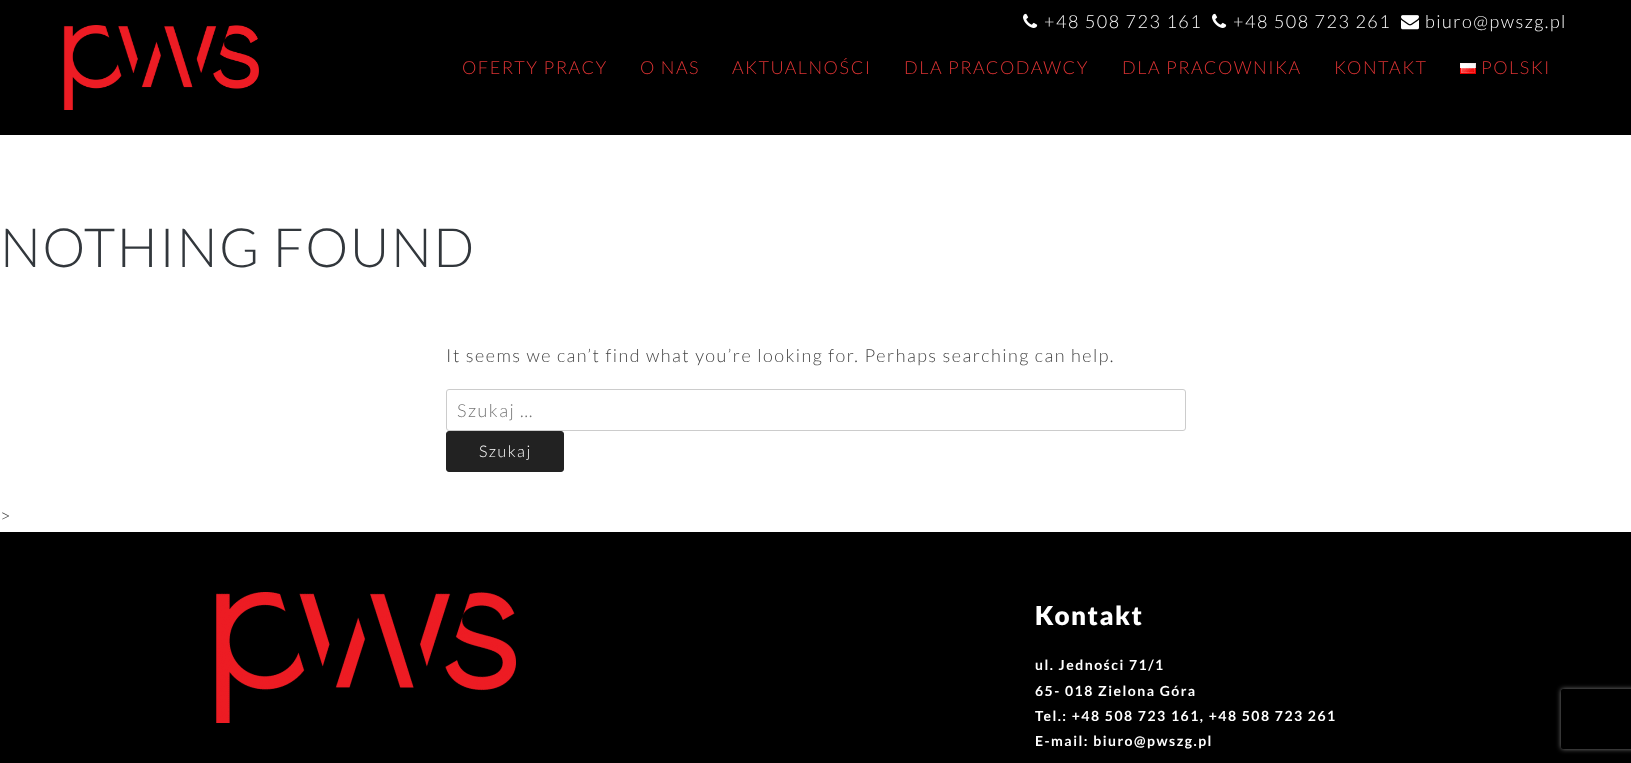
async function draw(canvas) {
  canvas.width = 1631
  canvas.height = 763
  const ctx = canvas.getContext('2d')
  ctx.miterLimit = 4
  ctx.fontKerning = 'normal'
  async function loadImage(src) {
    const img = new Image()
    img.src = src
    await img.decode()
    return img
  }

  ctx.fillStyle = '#fff'
  ctx.fillRect(0, 0, 1631, 763)
  ctx.fillStyle = '#000'
  ctx.fillRect(0, 0, 1631, 135)
  ctx.drawImage(await loadImage('image0.png'), 1023, 13, 15, 15)
  ctx.letterSpacing = '1.5px'
  ctx.font = '300 18px Lato'
  ctx.fillStyle = '#fff'
  ctx.fillText('+48 508 723 161', 1044, 28)
  ctx.drawImage(await loadImage('image0.png'), 1212, 13, 15, 15)
  ctx.fillText('+48 508 723 261', 1233, 28)
  ctx.drawImage(await loadImage('image1.png'), 1401, 15, 18, 15)
  ctx.fillText('biuro@pwszg.pl', 1425, 28)
  ctx.drawImage(await loadImage('image2.png'), 63, 25, 196, 85)
  ctx.fillStyle = '#d33'
  ctx.fillText('OFERTY PRACY', 462, 74)
  ctx.fillText('O NAS', 640, 74)
  ctx.fillText('AKTUALNOŚCI', 732, 74)
  ctx.fillText('DLA PRACODAWCY', 904, 74)
  ctx.fillText('DLA PRACOWNIKA', 1122, 74)
  ctx.fillText('KONTAKT', 1334, 74)
  ctx.drawImage(await loadImage('image3.png'), 1460, 63, 16, 11)
  ctx.fillText('POLSKI', 1481, 74)
  ctx.font = '300 54px Lato'
  ctx.fillStyle = '#32373c'
  ctx.fillText('NOTHING FOUND', 0, 267)
  ctx.font = '300 18px Lato'
  ctx.fillStyle = '#444'
  ctx.fillText('It seems we can’t find what you’re looking for. Perhaps searching can help.', 446, 362)
  ctx.beginPath()
  ctx.roundRect(446.5, 389.5, 739, 41, 2.5)
  ctx.strokeStyle = '#ccc'
  ctx.stroke()
  ctx.fillStyle = '#757575'
  ctx.fillText('Szukaj …', 457, 417)
  ctx.fillStyle = '#222'
  ctx.beginPath()
  ctx.roundRect(446.5, 431.5, 117, 40, 2.5)
  ctx.fill()
  ctx.strokeStyle = '#222'
  ctx.stroke()
  ctx.font = '300 16px Lato'
  ctx.fillStyle = '#fff'
  ctx.fillText('Szukaj', 479, 457)
  ctx.font = '300 18px Lato'
  ctx.fillStyle = '#444'
  ctx.fillText('>', 0, 522)
  ctx.fillStyle = '#000'
  ctx.fillRect(0, 532, 1631, 231)
  ctx.drawImage(await loadImage('image4.png'), 216, 592, 300, 131)
  ctx.font = '900 26px Lato'
  ctx.fillStyle = '#fff'
  ctx.fillText('Kontakt', 1035, 625)
  ctx.font = 'bold 14px Lato'
  ctx.fillText('ul. Jedności 71/1', 1035, 670)
  ctx.fillText('65- 018 Zielona Góra', 1035, 696)
  ctx.fillText('Tel.: +48 508 723 161, +48 508 723 261', 1035, 721)
  ctx.fillText('E-mail: biuro@pwszg.pl', 1035, 746)
  ctx.save()
  ctx.beginPath()
  ctx.moveTo(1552, 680)
  ctx.lineTo(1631, 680)
  ctx.lineTo(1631, 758)
  ctx.lineTo(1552, 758)
  ctx.closePath()
  ctx.moveTo(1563, 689)
  ctx.lineTo(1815, 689)
  ctx.bezierCurveTo(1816, 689, 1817, 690, 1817, 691)
  ctx.lineTo(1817, 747)
  ctx.bezierCurveTo(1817, 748, 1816, 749, 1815, 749)
  ctx.lineTo(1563, 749)
  ctx.bezierCurveTo(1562, 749, 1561, 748, 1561, 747)
  ctx.lineTo(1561, 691)
  ctx.bezierCurveTo(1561, 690, 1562, 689, 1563, 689)
  ctx.closePath()
  ctx.clip('evenodd')
  ctx.fillStyle = '#808080'
  ctx.filter = 'blur(2.5px)'
  ctx.beginPath()
  ctx.roundRect(1561, 689, 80, 60, 2)
  ctx.fill()
  ctx.filter = 'none'
  ctx.restore()
}

draw(document.querySelector('canvas'))
